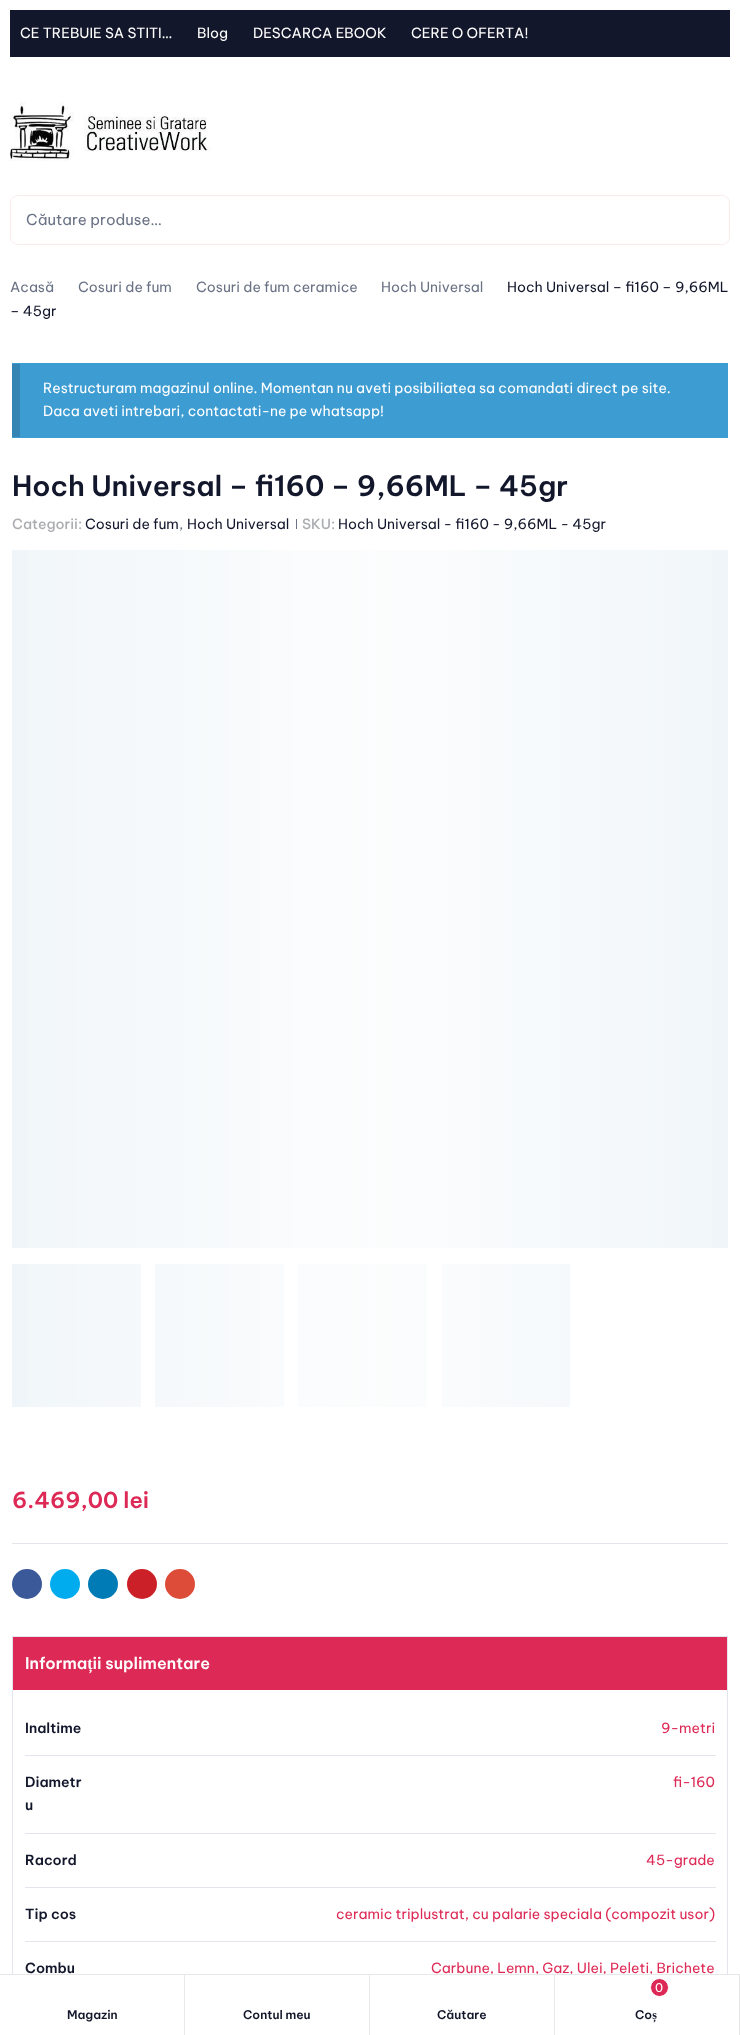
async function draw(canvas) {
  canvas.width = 740
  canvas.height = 2035
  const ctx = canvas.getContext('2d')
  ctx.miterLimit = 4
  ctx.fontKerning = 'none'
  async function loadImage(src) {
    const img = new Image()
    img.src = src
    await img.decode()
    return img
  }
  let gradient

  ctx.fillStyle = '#fff'
  ctx.fillRect(0, 0, 740, 2035)
  ctx.fillStyle = '#13172b'
  ctx.fillRect(10, 10, 720, 47)
  ctx.font = '14px Be Vietnam Pro'
  ctx.fillStyle = '#fff'
  ctx.fillText('CE TREBUIE SA STITI…', 20, 38)
  ctx.fillText('Blog', 197, 38)
  ctx.fillText('DESCARCA EBOOK', 253, 38)
  ctx.fillText('CERE O OFERTA!', 411, 38)
  ctx.drawImage(await loadImage('image0.png'), 10, 102, 201, 59)
  ctx.fillStyle = '#fceaea'
  ctx.beginPath()
  ctx.moveTo(18, 195)
  ctx.lineTo(640, 195)
  ctx.lineTo(640, 245)
  ctx.lineTo(18, 245)
  ctx.bezierCurveTo(14, 245, 10, 241, 10, 237)
  ctx.lineTo(10, 203)
  ctx.bezierCurveTo(10, 199, 14, 195, 18, 195)
  ctx.closePath()
  ctx.moveTo(18, 196)
  ctx.lineTo(640, 196)
  ctx.lineTo(640, 244)
  ctx.lineTo(18, 244)
  ctx.bezierCurveTo(14, 244, 11, 241, 11, 237)
  ctx.lineTo(11, 203)
  ctx.bezierCurveTo(11, 199, 14, 196, 18, 196)
  ctx.closePath()
  ctx.fill('evenodd')
  ctx.font = '15px Be Vietnam Pro'
  ctx.fillStyle = '#6a7285'
  ctx.fillText('Căutare produse…', 26, 225)
  ctx.fillStyle = '#fceaea'
  ctx.beginPath()
  ctx.moveTo(640, 195)
  ctx.lineTo(722, 195)
  ctx.bezierCurveTo(726, 195, 730, 199, 730, 203)
  ctx.lineTo(730, 237)
  ctx.bezierCurveTo(730, 241, 726, 245, 722, 245)
  ctx.lineTo(640, 245)
  ctx.closePath()
  ctx.moveTo(640, 196)
  ctx.lineTo(722, 196)
  ctx.bezierCurveTo(726, 196, 729, 199, 729, 203)
  ctx.lineTo(729, 237)
  ctx.bezierCurveTo(729, 241, 726, 244, 722, 244)
  ctx.lineTo(640, 244)
  ctx.closePath()
  ctx.fill('evenodd')
  ctx.font = '14px Be Vietnam Pro'
  ctx.fillStyle = '#6a7285'
  ctx.fillText('Acasă', 10, 292)
  ctx.fillText('Cosuri de fum', 78, 292)
  ctx.fillText('Cosuri de fum ceramice', 196, 292)
  ctx.fillText('Hoch Universal', 381, 292)
  ctx.fillStyle = '#13172b'
  ctx.fillText('Hoch Universal – fi160 – 9,66ML', 507, 292)
  ctx.fillText('– 45gr', 10, 316)
  ctx.fillStyle = '#3d9cd2'
  ctx.fillRect(12, 363, 716, 75)
  ctx.fillStyle = '#3485b3'
  ctx.fillRect(12, 364, 8, 73)
  ctx.fillStyle = '#fff'
  ctx.fillText('Restructuram magazinul online. Momentan nu aveti posibiliatea', 43, 393)
  ctx.fillText('sa comandati direct pe site.', 479, 393)
  ctx.fillText('Daca aveti intrebari, contactati-ne pe whatsapp!', 43, 416)
  ctx.font = '600 28px Be Vietnam Pro'
  ctx.fillStyle = '#13172b'
  ctx.fillText('Hoch Universal – fi160 – 9,66ML – 45gr', 12, 496)
  ctx.font = '500 14px Be Vietnam Pro'
  ctx.fillStyle = '#abadb1'
  ctx.fillText('Categorii:', 12, 529)
  ctx.font = '14px Be Vietnam Pro'
  ctx.fillStyle = '#13172b'
  ctx.fillText('Cosuri de fum', 85, 529)
  ctx.fillStyle = '#6a7285'
  ctx.fillText(',', 179, 529)
  ctx.fillStyle = '#13172b'
  ctx.fillText('Hoch Universal', 187, 529)
  ctx.fillStyle = '#6a7285'
  ctx.fillRect(296, 519, 1, 10)
  ctx.font = '500 14px Be Vietnam Pro'
  ctx.fillStyle = '#abadb1'
  ctx.fillText('SKU:', 302, 529)
  ctx.font = '14px Be Vietnam Pro'
  ctx.fillStyle = '#13172b'
  ctx.fillText('Hoch Universal - fi160 - 9,66ML - 45gr', 338, 529)
  ctx.fillStyle = '#eff5f8'
  ctx.fillRect(298, 1264, 129, 143)
  ctx.fillRect(155, 1264, 129, 143)
  ctx.fillRect(12, 1264, 129, 143)
  ctx.fillRect(12, 550, 716, 698)
  ctx.fillRect(442, 1264, 128, 143)
  gradient = ctx.createLinearGradient(-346, 997, 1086, 997)
  gradient.addColorStop(0.2, '#ffffff00')
  gradient.addColorStop(0.5, '#ffffffcc')
  gradient.addColorStop(0.8, '#ffffff00')
  ctx.fillStyle = gradient
  ctx.fillRect(28, 550, 684, 857)
  ctx.font = '600 22px Be Vietnam Pro'
  ctx.fillStyle = '#dd2955'
  ctx.fillText('6.469,00 lei', 12, 1508)
  ctx.fillStyle = '#e2e5eb'
  ctx.fillRect(12, 1543, 716, 1)
  ctx.fillStyle = '#3b5998'
  ctx.beginPath()
  ctx.arc(27, 1584, 15, 0, 2 * Math.PI)
  ctx.fill()
  ctx.fillStyle = '#00aced'
  ctx.beginPath()
  ctx.arc(65, 1584, 15, 0, 2 * Math.PI)
  ctx.fill()
  ctx.fillStyle = '#007bb6'
  ctx.beginPath()
  ctx.arc(103, 1584, 15, 0, 2 * Math.PI)
  ctx.fill()
  ctx.fillStyle = '#cb2027'
  ctx.beginPath()
  ctx.arc(142, 1584, 15, 0, 2 * Math.PI)
  ctx.fill()
  ctx.fillStyle = '#dd4b39'
  ctx.beginPath()
  ctx.arc(180, 1584, 15, 0, 2 * Math.PI)
  ctx.fill()
  ctx.strokeStyle = '#e2e5eb'
  ctx.strokeRect(12.5, 1636.5, 715, 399)
  ctx.fillStyle = '#dd2955'
  ctx.fillRect(13, 1637, 714, 53)
  ctx.font = '600 16px Be Vietnam Pro'
  ctx.fillStyle = '#fff'
  ctx.fillText('Informații suplimentare', 25, 1669)
  ctx.font = '600 14px Be Vietnam Pro'
  ctx.fillStyle = '#13172b'
  ctx.fillText('Inaltime', 25, 1733)
  ctx.fillStyle = '#e2e5eb'
  ctx.fillRect(25, 1755, 691, 1)
  ctx.font = '14px Be Vietnam Pro'
  ctx.fillStyle = '#dd2955'
  ctx.fillText('9-metri', 661, 1733)
  ctx.font = '600 14px Be Vietnam Pro'
  ctx.fillStyle = '#13172b'
  ctx.fillText('Diametr', 25, 1787)
  ctx.fillText('u', 25, 1810)
  ctx.fillStyle = '#e2e5eb'
  ctx.fillRect(25, 1833, 691, 1)
  ctx.font = '14px Be Vietnam Pro'
  ctx.fillStyle = '#dd2955'
  ctx.fillText('fi-160', 673, 1787)
  ctx.font = '600 14px Be Vietnam Pro'
  ctx.fillStyle = '#13172b'
  ctx.fillText('Racord', 25, 1865)
  ctx.fillStyle = '#e2e5eb'
  ctx.fillRect(25, 1887, 691, 1)
  ctx.font = '14px Be Vietnam Pro'
  ctx.fillStyle = '#dd2955'
  ctx.fillText('45-grade', 646, 1865)
  ctx.font = '600 14px Be Vietnam Pro'
  ctx.fillStyle = '#13172b'
  ctx.fillText('Tip cos', 25, 1919)
  ctx.fillStyle = '#e2e5eb'
  ctx.fillRect(25, 1941, 691, 1)
  ctx.font = '14px Be Vietnam Pro'
  ctx.fillStyle = '#dd2955'
  ctx.fillText('ceramic triplustrat, cu palarie speciala (compozit usor)', 336, 1919)
  ctx.font = '600 14px Be Vietnam Pro'
  ctx.fillStyle = '#13172b'
  ctx.fillText('Combu', 25, 1973)
  ctx.font = '14px Be Vietnam Pro'
  ctx.fillStyle = '#dd2955'
  ctx.fillText('Carbune, Lemn, Gaz, Ulei, Peleti, Brichete', 431, 1973)
  ctx.fillStyle = '#fff'
  ctx.fillRect(12, 1975, 716, 60)
  ctx.fillStyle = '#e8e8e8'
  ctx.fillRect(0, 1974, 740, 1)
  ctx.fillRect(184, 1975, 1, 60)
  ctx.font = '600 12px Be Vietnam Pro'
  ctx.fillStyle = '#13172b'
  ctx.fillText('Magazin', 67, 2019)
  ctx.fillStyle = '#e8e8e8'
  ctx.fillRect(369, 1975, 1, 60)
  ctx.fillStyle = '#13172b'
  ctx.fillText('Contul meu', 243, 2019)
  ctx.fillStyle = '#e8e8e8'
  ctx.fillRect(554, 1975, 1, 60)
  ctx.fillStyle = '#13172b'
  ctx.fillText('Căutare', 437, 2019)
  ctx.fillStyle = '#e8e8e8'
  ctx.fillRect(739, 1975, 1, 60)
  ctx.fillStyle = '#dd2955'
  ctx.beginPath()
  ctx.arc(659.5, 1987.5, 9, 0, 2 * Math.PI)
  ctx.fill()
  ctx.strokeStyle = '#fff'
  ctx.stroke()
  ctx.font = '12px Be Vietnam Pro'
  ctx.fillStyle = '#fff'
  ctx.fillText('0', 655, 1992)
  ctx.font = '600 12px Be Vietnam Pro'
  ctx.fillStyle = '#13172b'
  ctx.fillText('Coș', 635, 2019)
}

draw(document.querySelector('canvas'))
